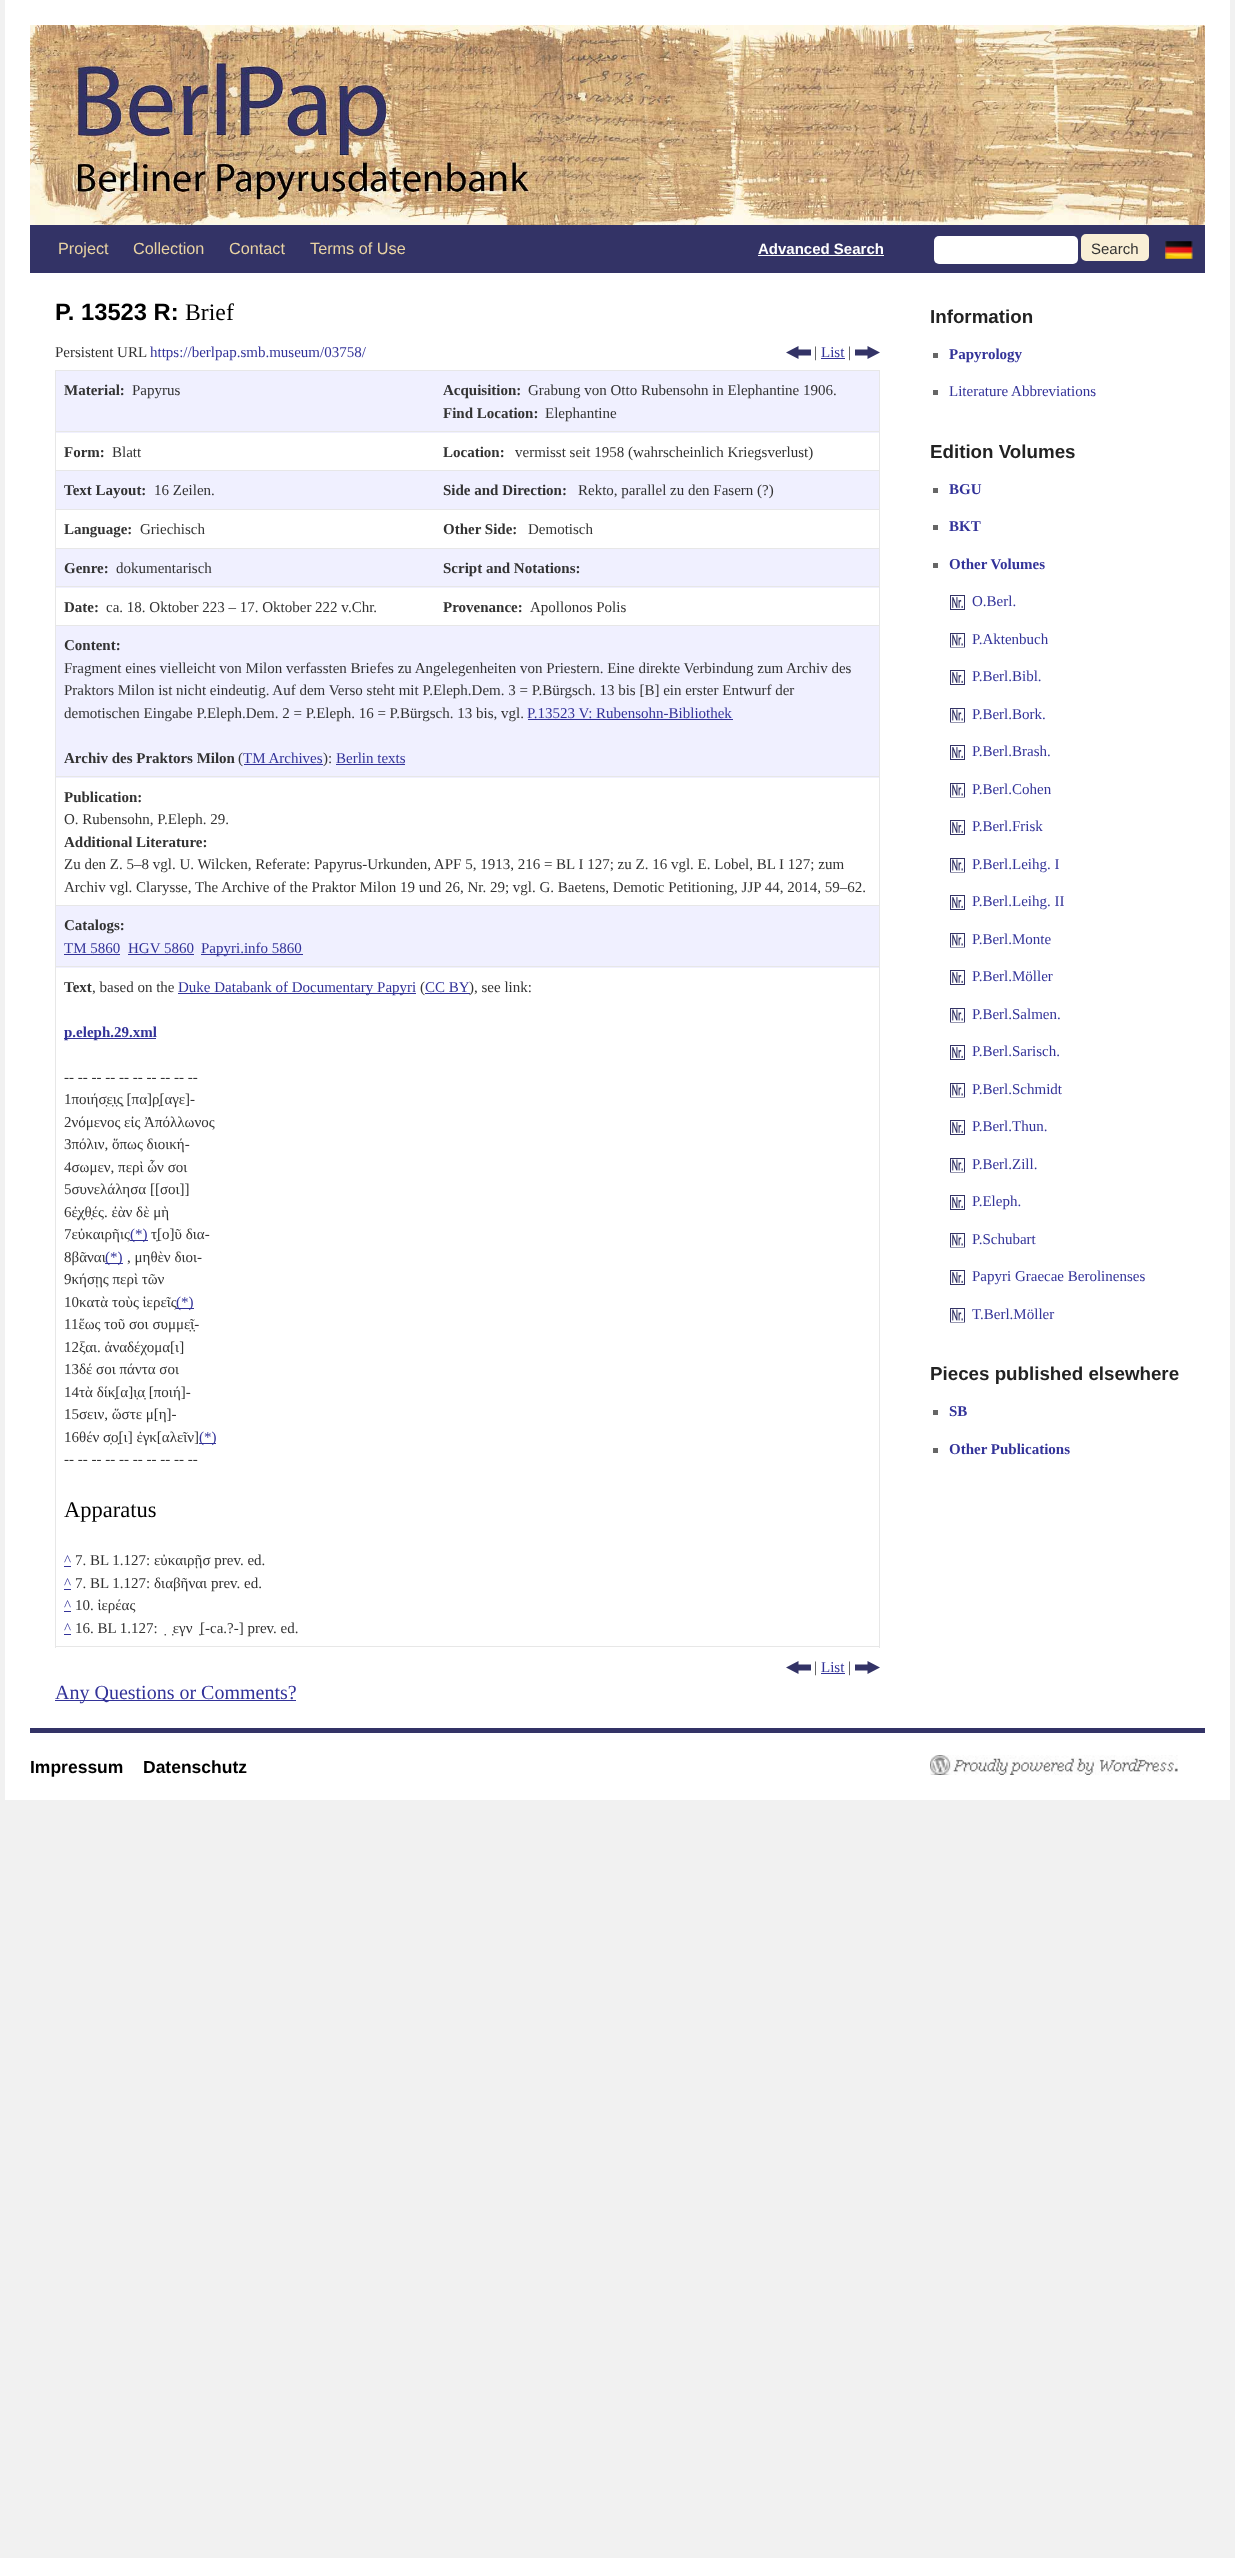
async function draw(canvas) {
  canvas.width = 1235
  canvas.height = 2558
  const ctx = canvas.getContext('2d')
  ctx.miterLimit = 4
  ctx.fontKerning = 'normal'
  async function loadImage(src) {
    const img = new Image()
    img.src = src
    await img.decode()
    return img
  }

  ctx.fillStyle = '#f1f1f1'
  ctx.fillRect(0, 0, 1235, 2558)
  ctx.fillStyle = '#fff'
  ctx.fillRect(5, 0, 1225, 1800)
  ctx.drawImage(await loadImage('image0.png'), 30, 25, 704, 200)
  ctx.drawImage(await loadImage('image1.png'), 733, 25, 472, 200)
  ctx.fillStyle = '#336'
  ctx.fillRect(30, 225, 1175, 48)
  ctx.font = '16.25px Liberation Sans'
  ctx.fillStyle = '#e9d3a3'
  ctx.fillText('Project', 58, 254)
  ctx.fillText('Collection', 133, 254)
  ctx.fillText('Contact', 229, 254)
  ctx.fillText('Terms of Use', 310, 254)
  ctx.font = 'bold 15px Liberation Sans'
  ctx.fillStyle = '#fff'
  ctx.fillText('Advanced Search', 758, 254)
  ctx.fillRect(758, 255, 126, 1)
  ctx.beginPath()
  ctx.roundRect(934, 236, 144, 28, 5)
  ctx.fill()
  ctx.fillStyle = '#f9efd6'
  ctx.beginPath()
  ctx.roundRect(1082.5, 235.5, 65, 24, 3.5)
  ctx.fill()
  ctx.strokeStyle = '#f9efd6'
  ctx.lineWidth = 3
  ctx.stroke()
  ctx.font = '15px Liberation Sans'
  ctx.fillStyle = '#333'
  ctx.fillText('Search', 1091, 254)
  ctx.drawImage(await loadImage('image2.png'), 1165, 241, 28, 18)
  ctx.font = 'bold 23.75px Liberation Sans'
  ctx.fillStyle = '#000'
  ctx.fillText('P. 13523 R:', 55, 320)
  ctx.font = '23.75px Liberation Serif'
  ctx.fillText('Brief', 185, 320)
  ctx.font = '15px Liberation Serif'
  ctx.fillStyle = '#333'
  ctx.fillText('Persistent URL', 55, 357)
  ctx.fillStyle = '#339'
  ctx.fillText('https://berlpap.smb.museum/03758/', 150, 357)
  ctx.fillStyle = '#336'
  ctx.beginPath()
  ctx.moveTo(811, 349.5)
  ctx.lineTo(798.5, 349.5)
  ctx.lineTo(798.5, 346)
  ctx.lineTo(786, 352.5)
  ctx.lineTo(798.5, 359)
  ctx.lineTo(798.5, 355.5)
  ctx.lineTo(811, 355.5)
  ctx.closePath()
  ctx.fill()
  ctx.fillStyle = '#333'
  ctx.fillText('|', 814, 357)
  ctx.fillStyle = '#339'
  ctx.fillText('List', 821, 357)
  ctx.fillRect(821, 358, 24, 1)
  ctx.fillStyle = '#333'
  ctx.fillText('|', 848, 357)
  ctx.fillStyle = '#336'
  ctx.beginPath()
  ctx.moveTo(855, 349.5)
  ctx.lineTo(867.5, 349.5)
  ctx.lineTo(867.5, 346)
  ctx.lineTo(880, 352.5)
  ctx.lineTo(867.5, 359)
  ctx.lineTo(867.5, 355.5)
  ctx.lineTo(855, 355.5)
  ctx.closePath()
  ctx.fill()
  ctx.fillStyle = '#e7e7e7'
  ctx.fillRect(55, 370, 825, 1)
  ctx.fillRect(879, 370, 1, 1278)
  ctx.fillRect(55, 1646, 825, 1)
  ctx.fillRect(55, 370, 1, 1278)
  ctx.fillStyle = '#f0f0ff'
  ctx.fillRect(56, 371, 823, 62)
  ctx.font = 'bold 15px Liberation Serif'
  ctx.fillStyle = '#333'
  ctx.fillText('Material:', 64, 395)
  ctx.font = '15px Liberation Serif'
  ctx.fillText('Papyrus', 132, 395)
  ctx.font = 'bold 15px Liberation Serif'
  ctx.fillText('Acquisition:', 443, 395)
  ctx.font = '15px Liberation Serif'
  ctx.fillText('Grabung von Otto Rubensohn in Elephantine 1906.', 528, 395)
  ctx.font = 'bold 15px Liberation Serif'
  ctx.fillText('Find Location:', 443, 418)
  ctx.font = '15px Liberation Serif'
  ctx.fillText('Elephantine', 545, 418)
  ctx.font = 'bold 15px Liberation Serif'
  ctx.fillText('Form:', 64, 457)
  ctx.font = '15px Liberation Serif'
  ctx.fillText('Blatt', 112, 457)
  ctx.fillStyle = '#e7e7e7'
  ctx.fillRect(55, 431, 825, 1)
  ctx.font = 'bold 15px Liberation Serif'
  ctx.fillStyle = '#333'
  ctx.fillText('Location:', 443, 457)
  ctx.font = '15px Liberation Serif'
  ctx.fillText('vermisst seit 1958 (wahrscheinlich Kriegsverlust)', 515, 457)
  ctx.fillStyle = '#f0f0ff'
  ctx.fillRect(56, 471, 823, 38)
  ctx.font = 'bold 15px Liberation Serif'
  ctx.fillStyle = '#333'
  ctx.fillText('Text Layout:', 64, 495)
  ctx.font = '15px Liberation Serif'
  ctx.fillText('16 Zeilen.', 154, 495)
  ctx.fillStyle = '#e7e7e7'
  ctx.fillRect(55, 470, 825, 1)
  ctx.font = 'bold 15px Liberation Serif'
  ctx.fillStyle = '#333'
  ctx.fillText('Side and Direction:', 443, 495)
  ctx.font = '15px Liberation Serif'
  ctx.fillText('Rekto, parallel zu den Fasern (?)', 578, 495)
  ctx.font = 'bold 15px Liberation Serif'
  ctx.fillText('Language:', 64, 534)
  ctx.font = '15px Liberation Serif'
  ctx.fillText('Griechisch', 140, 534)
  ctx.fillStyle = '#e7e7e7'
  ctx.fillRect(55, 509, 825, 1)
  ctx.font = 'bold 15px Liberation Serif'
  ctx.fillStyle = '#333'
  ctx.fillText('Other Side:', 443, 534)
  ctx.font = '15px Liberation Serif'
  ctx.fillText('Demotisch', 528, 534)
  ctx.fillStyle = '#f0f0ff'
  ctx.fillRect(56, 549, 823, 39)
  ctx.font = 'bold 15px Liberation Serif'
  ctx.fillStyle = '#333'
  ctx.fillText('Genre:', 64, 573)
  ctx.font = '15px Liberation Serif'
  ctx.fillText('dokumentarisch', 116, 573)
  ctx.fillStyle = '#e7e7e7'
  ctx.fillRect(55, 548, 825, 1)
  ctx.font = 'bold 15px Liberation Serif'
  ctx.fillStyle = '#333'
  ctx.fillText('Script and Notations:', 443, 573)
  ctx.fillText('Date:', 64, 612)
  ctx.font = '15px Liberation Serif'
  ctx.fillText('ca. 18. Oktober 223 – 17. Oktober 222 v.Chr.', 106, 612)
  ctx.fillStyle = '#e7e7e7'
  ctx.fillRect(55, 586, 825, 1)
  ctx.font = 'bold 15px Liberation Serif'
  ctx.fillStyle = '#333'
  ctx.fillText('Provenance:', 443, 612)
  ctx.font = '15px Liberation Serif'
  ctx.fillText('Apollonos Polis', 530, 612)
  ctx.fillStyle = '#f0f0ff'
  ctx.fillRect(56, 626, 823, 152)
  ctx.fillStyle = '#e7e7e7'
  ctx.fillRect(55, 625, 825, 1)
  ctx.font = 'bold 15px Liberation Serif'
  ctx.fillStyle = '#333'
  ctx.fillText('Content:', 64, 650)
  ctx.font = '15px Liberation Serif'
  ctx.fillText('Fragment eines vielleicht von Milon verfassten Briefes zu Angelegenheiten von Priestern. Eine direkte Verbindung zum Archiv des', 64, 673)
  ctx.fillText('Praktors Milon ist nicht eindeutig. Auf dem Verso steht mit P.Eleph.Dem. 3 = P.Bürgsch. 13 bis [B] ein erster Entwurf der', 64, 695)
  ctx.fillText('demotischen Eingabe P.Eleph.Dem. 2 = P.Eleph. 16 = P.Bürgsch. 13 bis, vgl.', 64, 718)
  ctx.fillStyle = '#339'
  ctx.fillText('P.13523 V: Rubensohn-Bibliothek', 527, 718)
  ctx.fillRect(528, 719, 205, 1)
  ctx.font = 'bold 15px Liberation Serif'
  ctx.fillStyle = '#333'
  ctx.fillText('Archiv des Praktors Milon', 64, 763)
  ctx.font = '15px Liberation Serif'
  ctx.fillText('(', 238, 763)
  ctx.fillStyle = '#339'
  ctx.fillText('TM Archives', 243, 763)
  ctx.fillRect(244, 764, 79, 1)
  ctx.fillStyle = '#333'
  ctx.fillText('):', 323, 763)
  ctx.fillStyle = '#339'
  ctx.fillText('Berlin texts', 336, 763)
  ctx.fillRect(336, 764, 69, 1)
  ctx.fillStyle = '#e7e7e7'
  ctx.fillRect(55, 776, 825, 1)
  ctx.font = 'bold 15px Liberation Serif'
  ctx.fillStyle = '#333'
  ctx.fillText('Publication:', 64, 802)
  ctx.font = '15px Liberation Serif'
  ctx.fillText('O. Rubensohn, P.Eleph. 29.', 64, 824)
  ctx.font = 'bold 15px Liberation Serif'
  ctx.fillText('Additional Literature:', 64, 847)
  ctx.font = '15px Liberation Serif'
  ctx.fillText('Zu den Z. 5–8 vgl. U. Wilcken, Referate: Papyrus-Urkunden, APF 5, 1913, 216 = BL I 127; zu Z. 16 vgl. E. Lobel, BL I 127; zum', 64, 869)
  ctx.fillText('Archiv vgl. Clarysse, The Archive of the Praktor Milon 19 und 26, Nr. 29; vgl. G. Baetens, Demotic Petitioning, JJP 44, 2014, 59–62.', 64, 892)
  ctx.fillStyle = '#f0f0ff'
  ctx.fillRect(56, 906, 823, 62)
  ctx.fillStyle = '#e7e7e7'
  ctx.fillRect(55, 905, 825, 1)
  ctx.font = 'bold 15px Liberation Serif'
  ctx.fillStyle = '#333'
  ctx.fillText('Catalogs:', 64, 930)
  ctx.font = '15px Liberation Serif'
  ctx.fillStyle = '#339'
  ctx.fillText('TM 5860', 64, 953)
  ctx.fillRect(64, 954, 56, 1)
  ctx.fillText('HGV 5860', 128, 953)
  ctx.fillRect(128, 954, 66, 1)
  ctx.fillRect(201, 954, 102, 1)
  ctx.fillText('Papyri.info 5860', 201, 953)
  ctx.fillStyle = '#e7e7e7'
  ctx.fillRect(55, 966, 825, 1)
  ctx.font = 'bold 15px Liberation Serif'
  ctx.fillStyle = '#333'
  ctx.fillText('Text', 64, 992)
  ctx.font = '15px Liberation Serif'
  ctx.fillText(', based on the', 92, 992)
  ctx.fillStyle = '#339'
  ctx.fillRect(178, 993, 238, 1)
  ctx.fillText('Duke Databank of Documentary Papyri', 178, 992)
  ctx.fillStyle = '#333'
  ctx.fillText('(', 420, 992)
  ctx.fillStyle = '#339'
  ctx.fillText('CC BY', 425, 992)
  ctx.fillRect(425, 993, 45, 1)
  ctx.fillStyle = '#333'
  ctx.fillText('), see link:', 469, 992)
  ctx.fillStyle = '#339'
  ctx.fillRect(64, 1038, 92, 1)
  ctx.font = 'bold 15px Liberation Serif'
  ctx.fillText('p.eleph.29.xml', 64, 1037)
  ctx.font = '15px Liberation Serif'
  ctx.fillStyle = '#333'
  ctx.fillText('-- -- -- -- -- -- -- -- -- --', 64, 1082)
  ctx.fillText('1ποιήσ̣ε̣ι̣ς̣ [πα]ρ̣[αγε]-', 64, 1104)
  ctx.fillText('2νόμενος εἰς Ἀπόλλωνος', 64, 1127)
  ctx.fillText('3πόλιν, ὅπως διοική-', 64, 1149)
  ctx.fillText('4σωμεν, περὶ ὧν σοι', 64, 1172)
  ctx.fillText('5συνελάλησα [[σοι]]', 64, 1194)
  ctx.fillText('6ἐ̣χ̣θ̣ές. ἐὰν δὲ μὴ', 64, 1217)
  ctx.fillText('7εὐκαιρῆις', 64, 1239)
  ctx.fillStyle = '#339'
  ctx.fillRect(130, 1240, 18, 1)
  ctx.fillText('(*)', 130, 1239)
  ctx.fillStyle = '#333'
  ctx.fillText('τ̣[ο]ῦ δια-', 151, 1239)
  ctx.fillText('8βᾶναι', 64, 1262)
  ctx.fillStyle = '#339'
  ctx.fillRect(105, 1263, 18, 1)
  ctx.fillText('(*)', 105, 1262)
  ctx.fillStyle = '#333'
  ctx.fillText(', μηθὲν διοι-', 127, 1262)
  ctx.fillText('9κήσῃς περὶ τῶν', 64, 1284)
  ctx.fillText('10κατὰ τοὺς ἱερεῖς', 64, 1307)
  ctx.fillStyle = '#339'
  ctx.fillRect(176, 1308, 18, 1)
  ctx.fillText('(*)', 176, 1307)
  ctx.fillStyle = '#333'
  ctx.fillText('11ἕως τοῦ σοι συμμε̣ῖ̣-', 64, 1329)
  ctx.fillText('12ξαι. ἀναδέχομα[ι]', 64, 1352)
  ctx.fillText('13δέ σοι πάντα σοι', 64, 1374)
  ctx.fillText('14τὰ δίκ̣[α]ι̣α̣ [ποιή]-', 64, 1397)
  ctx.fillText('15σειν, ὥστε μ[η]-', 64, 1419)
  ctx.fillText('16θέν σ̣ο̣[ι] ἐγκ[αλεῖν]', 64, 1442)
  ctx.fillStyle = '#339'
  ctx.fillRect(199, 1443, 17, 1)
  ctx.fillText('(*)', 199, 1442)
  ctx.fillStyle = '#333'
  ctx.fillText('-- -- -- -- -- -- -- -- -- --', 64, 1464)
  ctx.font = '22.5px Liberation Serif'
  ctx.fillStyle = '#000'
  ctx.fillText('Apparatus', 64, 1517)
  ctx.font = '15px Liberation Serif'
  ctx.fillStyle = '#339'
  ctx.fillText('^', 64, 1565)
  ctx.fillRect(64, 1566, 7, 1)
  ctx.fillStyle = '#333'
  ctx.fillText('7. BL 1.127: εὐκαιρῇσ prev. ed.', 75, 1565)
  ctx.fillStyle = '#339'
  ctx.fillText('^', 64, 1588)
  ctx.fillRect(64, 1589, 7, 1)
  ctx.fillStyle = '#333'
  ctx.fillText('7. BL 1.127: διαβῆναι prev. ed.', 75, 1588)
  ctx.fillStyle = '#339'
  ctx.fillText('^', 64, 1610)
  ctx.fillRect(64, 1611, 7, 1)
  ctx.fillStyle = '#333'
  ctx.fillText('10. ἱερέας', 75, 1610)
  ctx.fillStyle = '#339'
  ctx.fillText('^', 64, 1633)
  ctx.fillRect(64, 1634, 7, 1)
  ctx.fillStyle = '#333'
  ctx.fillText('16. BL 1.127:  ̣  ̣εγν  ̣[-ca.?-] prev. ed.', 75, 1633)
  ctx.fillStyle = '#336'
  ctx.beginPath()
  ctx.moveTo(811, 1664.5)
  ctx.lineTo(798.5, 1664.5)
  ctx.lineTo(798.5, 1661)
  ctx.lineTo(786, 1667.5)
  ctx.lineTo(798.5, 1674)
  ctx.lineTo(798.5, 1670.5)
  ctx.lineTo(811, 1670.5)
  ctx.closePath()
  ctx.fill()
  ctx.fillStyle = '#333'
  ctx.fillText('|', 814, 1672)
  ctx.fillStyle = '#339'
  ctx.fillText('List', 821, 1672)
  ctx.fillRect(821, 1673, 24, 1)
  ctx.fillStyle = '#333'
  ctx.fillText('|', 848, 1672)
  ctx.fillStyle = '#336'
  ctx.beginPath()
  ctx.moveTo(855, 1664.5)
  ctx.lineTo(867.5, 1664.5)
  ctx.lineTo(867.5, 1661)
  ctx.lineTo(880, 1667.5)
  ctx.lineTo(867.5, 1674)
  ctx.lineTo(867.5, 1670.5)
  ctx.lineTo(855, 1670.5)
  ctx.closePath()
  ctx.fill()
  ctx.fillStyle = '#339'
  ctx.fillRect(55, 1700, 241, 1)
  ctx.font = '20px Liberation Serif'
  ctx.fillText('Any Questions or Comments?', 55, 1699)
  ctx.font = 'bold 18.75px Liberation Sans'
  ctx.fillStyle = '#222'
  ctx.fillText('Information', 930, 323)
  ctx.fillStyle = '#666'
  ctx.fillRect(933, 353, 5, 5)
  ctx.font = 'bold 15px Liberation Serif'
  ctx.fillStyle = '#339'
  ctx.fillText('Papyrology', 949, 359)
  ctx.fillStyle = '#666'
  ctx.fillRect(933, 390, 5, 5)
  ctx.font = '15px Liberation Serif'
  ctx.fillStyle = '#339'
  ctx.fillText('Literature Abbreviations', 949, 396)
  ctx.font = 'bold 18.75px Liberation Sans'
  ctx.fillStyle = '#222'
  ctx.fillText('Edition Volumes', 930, 458)
  ctx.fillStyle = '#666'
  ctx.fillRect(933, 488, 5, 5)
  ctx.font = 'bold 15px Liberation Serif'
  ctx.fillStyle = '#339'
  ctx.fillText('BGU', 949, 494)
  ctx.fillStyle = '#666'
  ctx.fillRect(933, 525, 5, 5)
  ctx.fillStyle = '#339'
  ctx.fillText('BKT', 949, 531)
  ctx.fillStyle = '#666'
  ctx.fillRect(933, 563, 5, 5)
  ctx.fillStyle = '#339'
  ctx.fillText('Other Volumes', 949, 569)
  ctx.drawImage(await loadImage('image3.png'), 950, 595, 15, 15)
  ctx.font = '15px Liberation Serif'
  ctx.fillText('O.Berl.', 972, 606)
  ctx.drawImage(await loadImage('image4.png'), 950, 633, 15, 15)
  ctx.fillText('P.Aktenbuch', 972, 644)
  ctx.drawImage(await loadImage('image3.png'), 950, 670, 15, 15)
  ctx.fillText('P.Berl.Bibl.', 972, 681)
  ctx.drawImage(await loadImage('image4.png'), 950, 708, 15, 15)
  ctx.fillText('P.Berl.Bork.', 972, 719)
  ctx.drawImage(await loadImage('image3.png'), 950, 745, 15, 15)
  ctx.fillText('P.Berl.Brash.', 972, 756)
  ctx.drawImage(await loadImage('image4.png'), 950, 783, 15, 15)
  ctx.fillText('P.Berl.Cohen', 972, 794)
  ctx.drawImage(await loadImage('image3.png'), 950, 820, 15, 15)
  ctx.fillText('P.Berl.Frisk', 972, 831)
  ctx.drawImage(await loadImage('image4.png'), 950, 858, 15, 15)
  ctx.fillText('P.Berl.Leihg. I', 972, 869)
  ctx.drawImage(await loadImage('image3.png'), 950, 895, 15, 15)
  ctx.fillText('P.Berl.Leihg. II', 972, 906)
  ctx.drawImage(await loadImage('image4.png'), 950, 933, 15, 15)
  ctx.fillText('P.Berl.Monte', 972, 944)
  ctx.drawImage(await loadImage('image3.png'), 950, 970, 15, 15)
  ctx.fillText('P.Berl.Möller', 972, 981)
  ctx.drawImage(await loadImage('image4.png'), 950, 1008, 15, 15)
  ctx.fillText('P.Berl.Salmen.', 972, 1019)
  ctx.drawImage(await loadImage('image3.png'), 950, 1045, 15, 15)
  ctx.fillText('P.Berl.Sarisch.', 972, 1056)
  ctx.drawImage(await loadImage('image4.png'), 950, 1083, 15, 15)
  ctx.fillText('P.Berl.Schmidt', 972, 1094)
  ctx.drawImage(await loadImage('image3.png'), 950, 1120, 15, 15)
  ctx.fillText('P.Berl.Thun.', 972, 1131)
  ctx.drawImage(await loadImage('image4.png'), 950, 1158, 15, 15)
  ctx.fillText('P.Berl.Zill.', 972, 1169)
  ctx.drawImage(await loadImage('image3.png'), 950, 1195, 15, 15)
  ctx.fillText('P.Eleph.', 972, 1206)
  ctx.drawImage(await loadImage('image4.png'), 950, 1233, 15, 15)
  ctx.fillText('P.Schubart', 972, 1244)
  ctx.drawImage(await loadImage('image3.png'), 950, 1270, 15, 15)
  ctx.fillText('Papyri Graecae Berolinenses', 972, 1281)
  ctx.drawImage(await loadImage('image4.png'), 950, 1308, 15, 15)
  ctx.fillText('T.Berl.Möller', 972, 1319)
  ctx.font = 'bold 18.75px Liberation Sans'
  ctx.fillStyle = '#222'
  ctx.fillText('Pieces published elsewhere', 930, 1380)
  ctx.fillStyle = '#666'
  ctx.fillRect(933, 1410, 5, 5)
  ctx.font = 'bold 15px Liberation Serif'
  ctx.fillStyle = '#339'
  ctx.fillText('SB', 949, 1416)
  ctx.fillStyle = '#666'
  ctx.fillRect(933, 1448, 5, 5)
  ctx.fillStyle = '#339'
  ctx.fillText('Other Publications', 949, 1454)
  ctx.fillStyle = '#336'
  ctx.fillRect(30, 1728, 1175, 5)
  ctx.font = 'bold 17.5px Liberation Sans'
  ctx.fillStyle = '#000'
  ctx.fillText('Impressum', 30, 1773)
  ctx.fillText('Datenschutz', 143, 1773)
  ctx.drawImage(await loadImage('image5.png'), 930, 1755, 248, 20)
}

draw(document.querySelector('canvas'))
